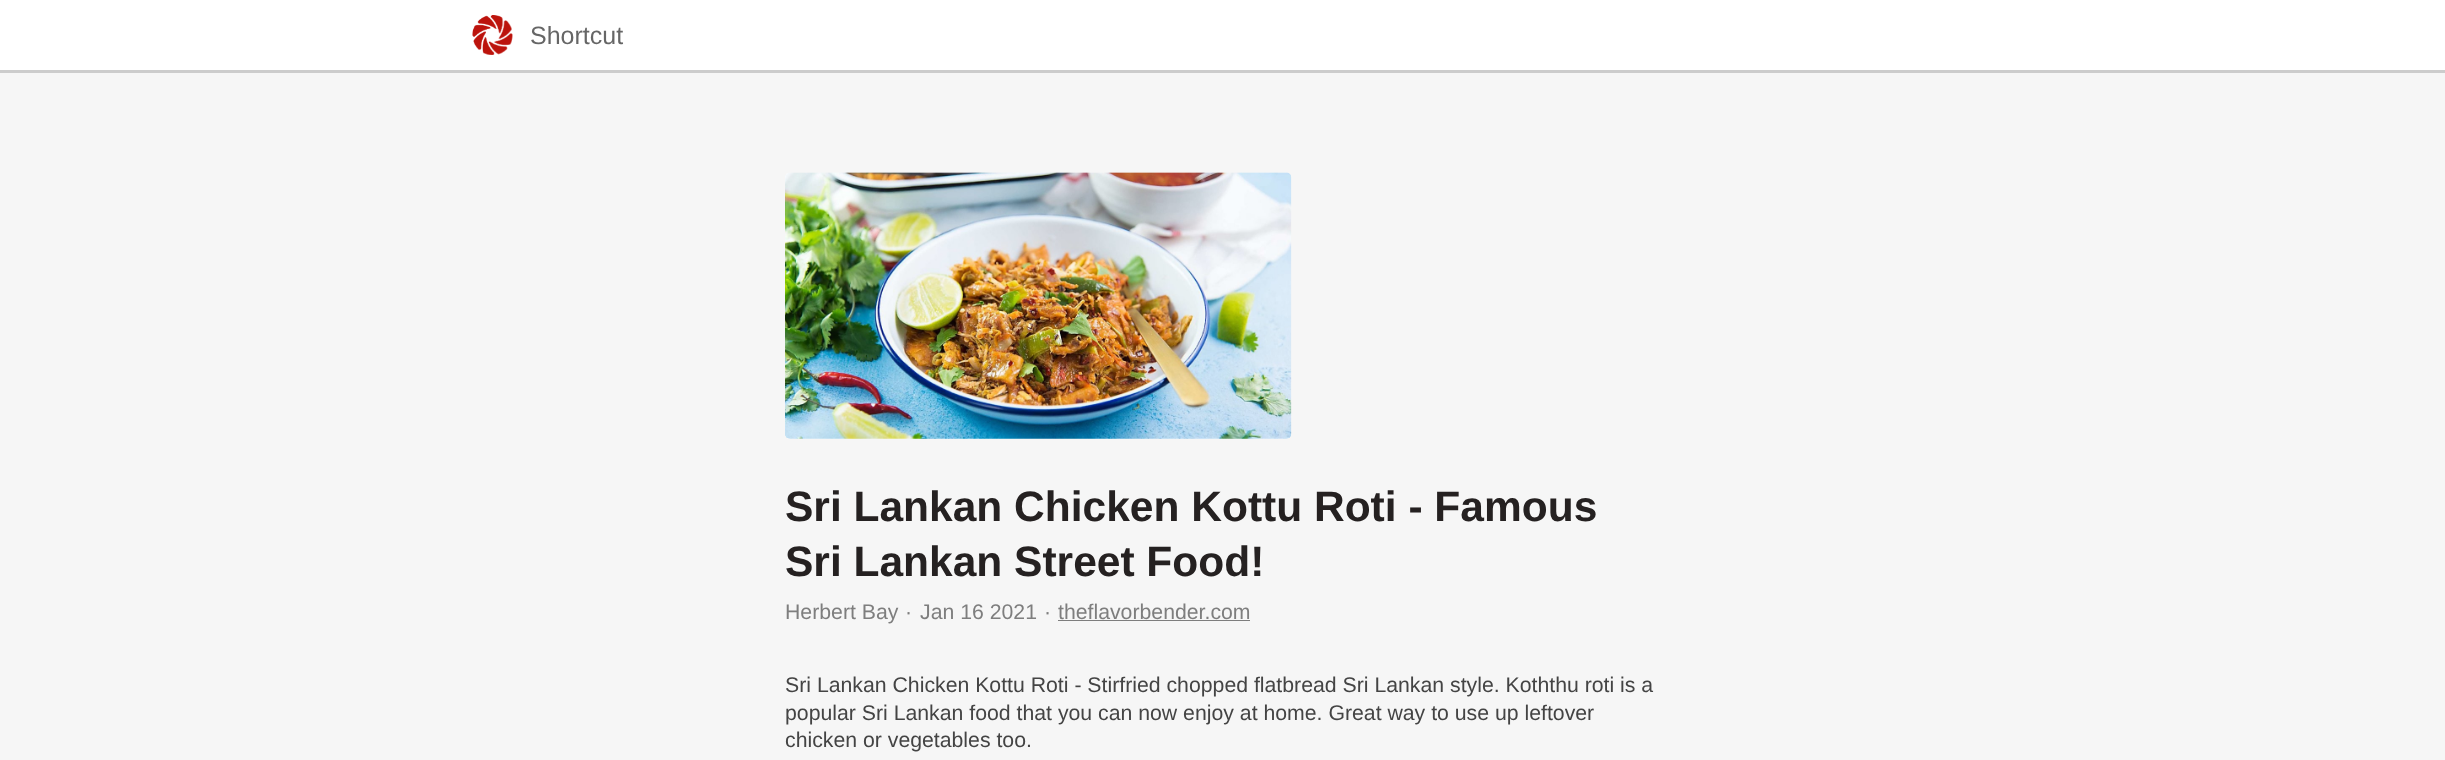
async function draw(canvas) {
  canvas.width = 2445
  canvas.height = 760
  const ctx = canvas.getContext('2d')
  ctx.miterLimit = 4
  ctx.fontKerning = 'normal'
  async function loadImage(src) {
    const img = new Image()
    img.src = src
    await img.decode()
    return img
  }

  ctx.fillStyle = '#f6f6f6'
  ctx.fillRect(0, 0, 2445, 760)
  ctx.fillStyle = '#fff'
  ctx.fillRect(0, 0, 2445, 70)
  ctx.fillStyle = '#ccc'
  ctx.fillRect(0, 70, 2445, 3)
  ctx.drawImage(await loadImage('image0.png'), 472, 15, 41, 40)
  ctx.font = '25px Liberation Sans'
  ctx.fillStyle = '#666'
  ctx.fillText('Shortcut', 530, 44)
  ctx.fillStyle = '#fff'
  ctx.beginPath()
  ctx.roundRect(785, 173, 506, 266, 5)
  ctx.fill()
  ctx.drawImage(await loadImage('image1.png'), 785, 172, 507, 267)
  ctx.drawImage(await loadImage('image2.png'), 785, 172, 507, 267)
  ctx.font = 'bold 42.5px Liberation Sans'
  ctx.fillStyle = '#252121'
  ctx.fillText('Sri Lankan Chicken Kottu Roti - Famous', 785, 521)
  ctx.fillText('Sri Lankan Street Food!', 785, 576)
  ctx.font = '21.25px Liberation Sans'
  ctx.fillStyle = '#7e7e7e'
  ctx.fillText('Herbert Bay', 785, 619)
  ctx.fillText('·', 905, 619)
  ctx.fillText('Jan 16 2021', 920, 619)
  ctx.fillText('·', 1044, 619)
  ctx.fillText('theflavorbender.com', 1058, 619)
  ctx.fillRect(1058, 620, 192, 1)
  ctx.fillStyle = '#444'
  ctx.fillText('Sri Lankan Chicken Kottu Roti - Stirfried chopped flatbread Sri Lankan style. Koththu roti is a', 785, 692)
  ctx.fillText('popular Sri Lankan food that you can now enjoy at home. Great way to use up leftover', 785, 720)
  ctx.fillText('chicken or vegetables too.', 785, 747)
}

draw(document.querySelector('canvas'))
